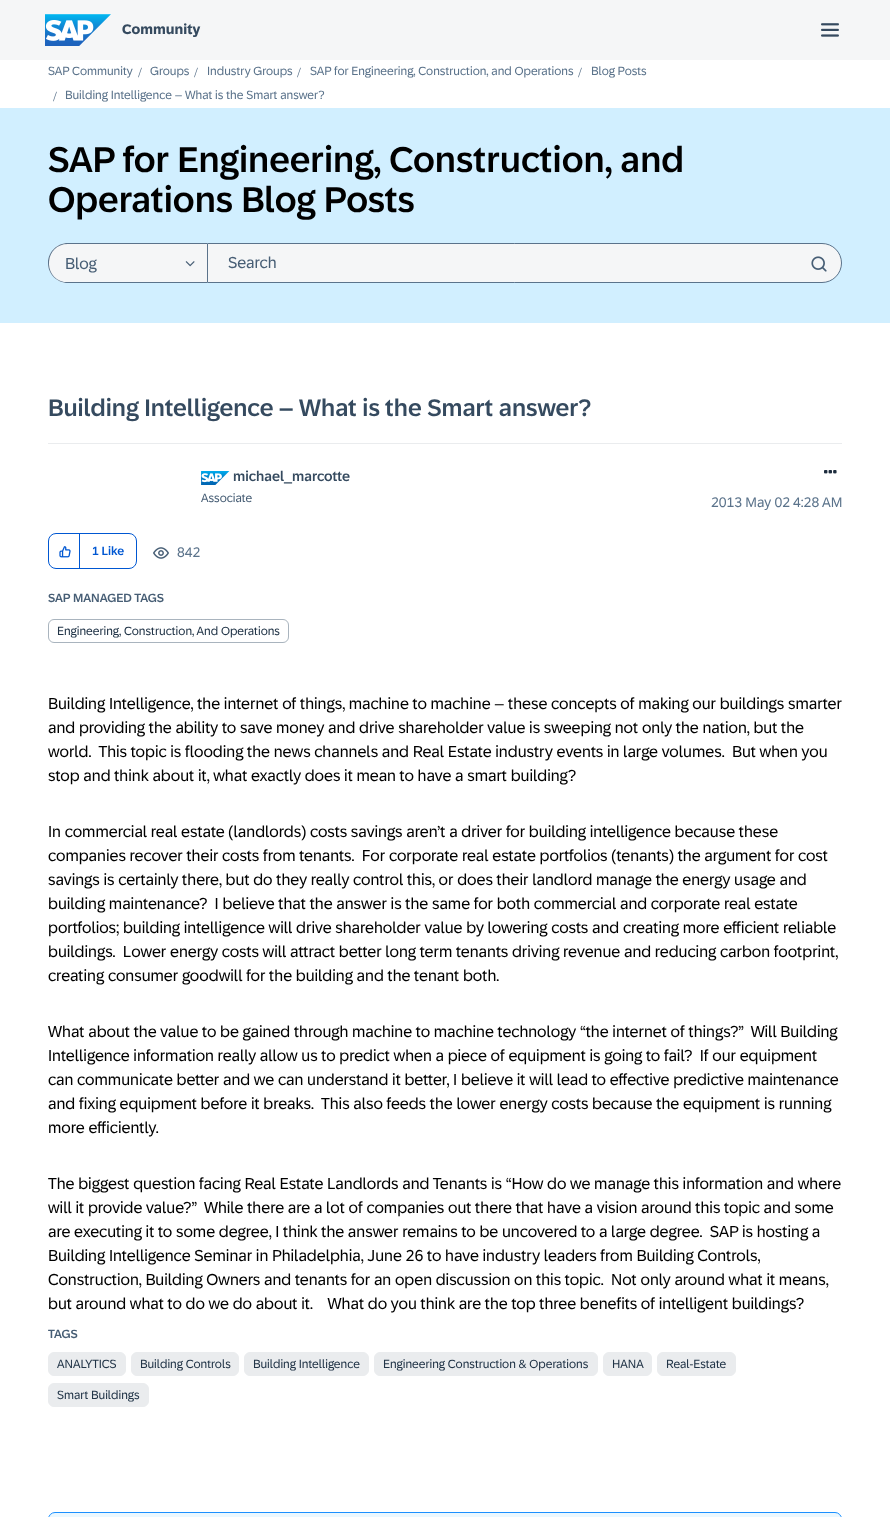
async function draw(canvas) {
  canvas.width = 890
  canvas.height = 1517
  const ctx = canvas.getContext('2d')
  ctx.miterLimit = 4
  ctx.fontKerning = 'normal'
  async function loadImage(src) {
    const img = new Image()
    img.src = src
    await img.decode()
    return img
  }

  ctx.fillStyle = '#fff'
  ctx.fillRect(0, 0, 890, 1517)
  ctx.fillStyle = '#f5f6f7'
  ctx.fillRect(0, 0, 890, 60)
  ctx.drawImage(await loadImage('image0.png'), 45, 14, 66, 32)
  ctx.font = 'bold 14px "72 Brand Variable"'
  ctx.fillStyle = '#354a5f'
  ctx.fillText('Community', 122, 34)
  ctx.drawImage(await loadImage('image1.png'), 821, 23, 18, 14)
  ctx.font = '12px "72 Brand Variable"'
  ctx.fillStyle = '#5b738b'
  ctx.fillText('SAP Community', 48, 75)
  ctx.font = '14px Liberation Serif'
  ctx.fillText('/', 138, 77)
  ctx.font = '12px "72 Brand Variable"'
  ctx.fillText('Groups', 150, 75)
  ctx.font = '14px Liberation Serif'
  ctx.fillText('/', 194, 77)
  ctx.font = '12px "72 Brand Variable"'
  ctx.fillText('Industry Groups', 207, 75)
  ctx.font = '14px Liberation Serif'
  ctx.fillText('/', 297, 77)
  ctx.font = '12px "72 Brand Variable"'
  ctx.fillText('SAP for Engineering, Construction, and Operations', 310, 75)
  ctx.font = '14px Liberation Serif'
  ctx.fillText('/', 578, 77)
  ctx.font = '12px "72 Brand Variable"'
  ctx.fillText('Blog Posts', 591, 75)
  ctx.font = '14px Liberation Serif'
  ctx.fillText('/', 53, 101)
  ctx.font = '12px "72 Brand Variable"'
  ctx.fillText('Building Intelligence – What is the Smart answer?', 65, 99)
  ctx.fillStyle = '#d1efff'
  ctx.fillRect(0, 108, 890, 215)
  ctx.font = '500 36px "72 Brand Variable"'
  ctx.fillStyle = '#000'
  ctx.fillText('SAP for Engineering, Construction, and', 48, 172)
  ctx.fillText('Operations Blog Posts', 48, 212)
  ctx.fillStyle = '#f5f6f7'
  ctx.beginPath()
  ctx.roundRect(48, 243, 159, 40, [20, 0, 0, 20])
  ctx.fill()
  ctx.fillStyle = '#5b738b'
  ctx.beginPath()
  ctx.moveTo(68, 243)
  ctx.lineTo(207, 243)
  ctx.lineTo(207, 283)
  ctx.lineTo(68, 283)
  ctx.bezierCurveTo(57, 283, 48, 274, 48, 263)
  ctx.bezierCurveTo(48, 252, 57, 243, 68, 243)
  ctx.closePath()
  ctx.moveTo(68, 244)
  ctx.lineTo(207, 244)
  ctx.lineTo(207, 282)
  ctx.lineTo(64, 282)
  ctx.bezierCurveTo(42, 277, 45, 244, 68, 244)
  ctx.closePath()
  ctx.fill('evenodd')
  ctx.font = '16px "72 Brand Variable"'
  ctx.fillStyle = '#475e75'
  ctx.fillText('Blog', 65, 269)
  ctx.drawImage(await loadImage('image2.png'), 185, 261, 10, 6)
  ctx.fillStyle = '#f5f6f7'
  ctx.beginPath()
  ctx.roundRect(207.5, 243.5, 634, 39, [0, 19.5, 19.5, 0])
  ctx.fill()
  ctx.strokeStyle = '#5b738b'
  ctx.stroke()
  ctx.fillStyle = '#475e75'
  ctx.fillText('Search', 228, 268)
  ctx.drawImage(await loadImage('image3.png'), 811, 256, 16, 16)
  ctx.fillStyle = '#eaecee'
  ctx.fillRect(48, 443, 794, 1)
  ctx.font = '500 24px "72 Brand Variable"'
  ctx.fillStyle = '#354a5f'
  ctx.fillText('Building Intelligence – What is the Smart answer?', 48, 416)
  ctx.drawImage(await loadImage('image4.png'), 201, 471, 29, 14)
  ctx.font = '500 14px "72 Brand Variable"'
  ctx.fillText('michael_marcotte', 233, 481)
  ctx.font = '12px "72 Brand Variable"'
  ctx.fillStyle = '#475e75'
  ctx.fillText('Associate', 201, 502)
  ctx.drawImage(await loadImage('image5.png'), 824, 470, 13, 4)
  ctx.font = '14px "72 Brand Variable"'
  ctx.fillStyle = '#5b738b'
  ctx.fillText('2013 May 02', 711, 507)
  ctx.fillText('4:28 AM', 793, 507)
  ctx.beginPath()
  ctx.roundRect(48.5, 533.5, 88, 35, 7.5)
  ctx.strokeStyle = '#0057d2'
  ctx.stroke()
  ctx.fillStyle = '#0057d2'
  ctx.fillRect(79, 534, 1, 35)
  ctx.drawImage(await loadImage('image6.png'), 59, 546, 12, 12)
  ctx.font = '500 12px "72 Brand Variable"'
  ctx.fillText('1 Like', 92, 555)
  ctx.drawImage(await loadImage('image7.png'), 153, 547, 16, 12)
  ctx.font = '14px "72 Brand Variable"'
  ctx.fillStyle = '#5b738b'
  ctx.fillText('842', 177, 557)
  ctx.font = '500 12px "72 Brand Variable"'
  ctx.fillStyle = '#475e75'
  ctx.fillText('SAP MANAGED TAGS', 48, 602)
  ctx.beginPath()
  ctx.roundRect(48.5, 619.5, 240, 23, 5.5)
  ctx.strokeStyle = '#a9b4be'
  ctx.stroke()
  ctx.font = '12px "72 Brand Variable"'
  ctx.fillStyle = '#223548'
  ctx.fillText('Engineering, Construction, And Operations', 57, 635)
  ctx.font = '16px "72 Brand Variable"'
  ctx.fillStyle = '#000'
  ctx.fillText('Building Intelligence, the internet of things, machine to machine – these concepts of making our buildings smarter', 48, 709)
  ctx.fillText('and providing the ability to save money and drive shareholder value is sweeping not only the nation, but the', 48, 733)
  ctx.fillText('world.  This topic is flooding the news channels and Real Estate industry events in large volumes.  But when you', 48, 757)
  ctx.fillText('stop and think about it, what exactly does it mean to have a smart building?', 48, 781)
  ctx.fillText('In commercial real estate (landlords) costs savings aren’t a driver for building intelligence because these', 48, 837)
  ctx.fillText('companies recover their costs from tenants.  For corporate real estate portfolios (tenants) the argument for cost', 48, 861)
  ctx.fillText('savings is certainly there, but do they really control this, or does their landlord manage the energy usage and', 48, 885)
  ctx.fillText('building maintenance?  I believe that the answer is the same for both commercial and corporate real estate', 48, 909)
  ctx.fillText('portfolios; building intelligence will drive shareholder value by lowering costs and creating more efficient reliable', 48, 933)
  ctx.fillText('buildings.  Lower energy costs will attract better long term tenants driving revenue and reducing carbon footprint,', 48, 957)
  ctx.fillText('creating consumer goodwill for the building and the tenant both.', 48, 981)
  ctx.fillText('What about the value to be gained through machine to machine technology “the internet of things?”  Will Building', 48, 1037)
  ctx.fillText('Intelligence information really allow us to predict when a piece of equipment is going to fail?  If our equipment', 48, 1061)
  ctx.fillText('can communicate better and we can understand it better, I believe it will lead to effective predictive maintenance', 48, 1085)
  ctx.fillText('and fixing equipment before it breaks.  This also feeds the lower energy costs because the equipment is running', 48, 1109)
  ctx.fillText('more efficiently.', 48, 1133)
  ctx.fillText('The biggest question facing Real Estate Landlords and Tenants is “How do we manage this information and where', 48, 1189)
  ctx.fillText('will it provide value?”  While there are a lot of companies out there that have a vision around this topic and some', 48, 1213)
  ctx.fillText('are executing it to some degree, I think the answer remains to be uncovered to a large degree.  SAP is hosting a', 48, 1237)
  ctx.fillText('Building Intelligence Seminar in Philadelphia, June 26 to have industry leaders from Building Controls,', 48, 1261)
  ctx.fillText('Construction, Building Owners and tenants for an open discussion on this topic.  Not only around what it means,', 48, 1285)
  ctx.fillText('but around what to do we do about it.    What do you think are the top three benefits of intelligent buildings?', 48, 1309)
  ctx.font = '500 12px "72 Brand Variable"'
  ctx.fillStyle = '#475e75'
  ctx.fillText('TAGS', 48, 1338)
  ctx.fillStyle = '#eaecee'
  ctx.beginPath()
  ctx.roundRect(48.5, 1352.5, 77, 23, 5.5)
  ctx.fill()
  ctx.strokeStyle = '#eaecee'
  ctx.stroke()
  ctx.font = '12px "72 Brand Variable"'
  ctx.fillStyle = '#223548'
  ctx.fillText('ANALYTICS', 57, 1368)
  ctx.fillStyle = '#eaecee'
  ctx.beginPath()
  ctx.roundRect(131.5, 1352.5, 107, 23, 5.5)
  ctx.fill()
  ctx.stroke()
  ctx.fillStyle = '#223548'
  ctx.fillText('Building Controls', 140, 1368)
  ctx.fillStyle = '#eaecee'
  ctx.beginPath()
  ctx.roundRect(244.5, 1352.5, 124, 23, 5.5)
  ctx.fill()
  ctx.stroke()
  ctx.fillStyle = '#223548'
  ctx.fillText('Building Intelligence', 253, 1368)
  ctx.fillStyle = '#eaecee'
  ctx.beginPath()
  ctx.roundRect(374.5, 1352.5, 223, 23, 5.5)
  ctx.fill()
  ctx.stroke()
  ctx.fillStyle = '#223548'
  ctx.fillText('Engineering Construction & Operations', 383, 1368)
  ctx.fillStyle = '#eaecee'
  ctx.beginPath()
  ctx.roundRect(603.5, 1352.5, 48, 23, 5.5)
  ctx.fill()
  ctx.stroke()
  ctx.fillStyle = '#223548'
  ctx.fillText('HANA', 612, 1368)
  ctx.fillStyle = '#eaecee'
  ctx.beginPath()
  ctx.roundRect(657.5, 1352.5, 78, 23, 5.5)
  ctx.fill()
  ctx.stroke()
  ctx.fillStyle = '#223548'
  ctx.fillText('Real-Estate', 666, 1368)
  ctx.fillStyle = '#eaecee'
  ctx.beginPath()
  ctx.roundRect(48.5, 1383.5, 100, 23, 5.5)
  ctx.fill()
  ctx.stroke()
  ctx.fillStyle = '#223548'
  ctx.fillText('Smart Buildings', 57, 1399)
  ctx.fillStyle = '#ebf8ff'
  ctx.beginPath()
  ctx.roundRect(48.5, 1512.5, 793, 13, 7.5)
  ctx.fill()
  ctx.strokeStyle = '#1b90ff'
  ctx.stroke()
}

draw(document.querySelector('canvas'))
